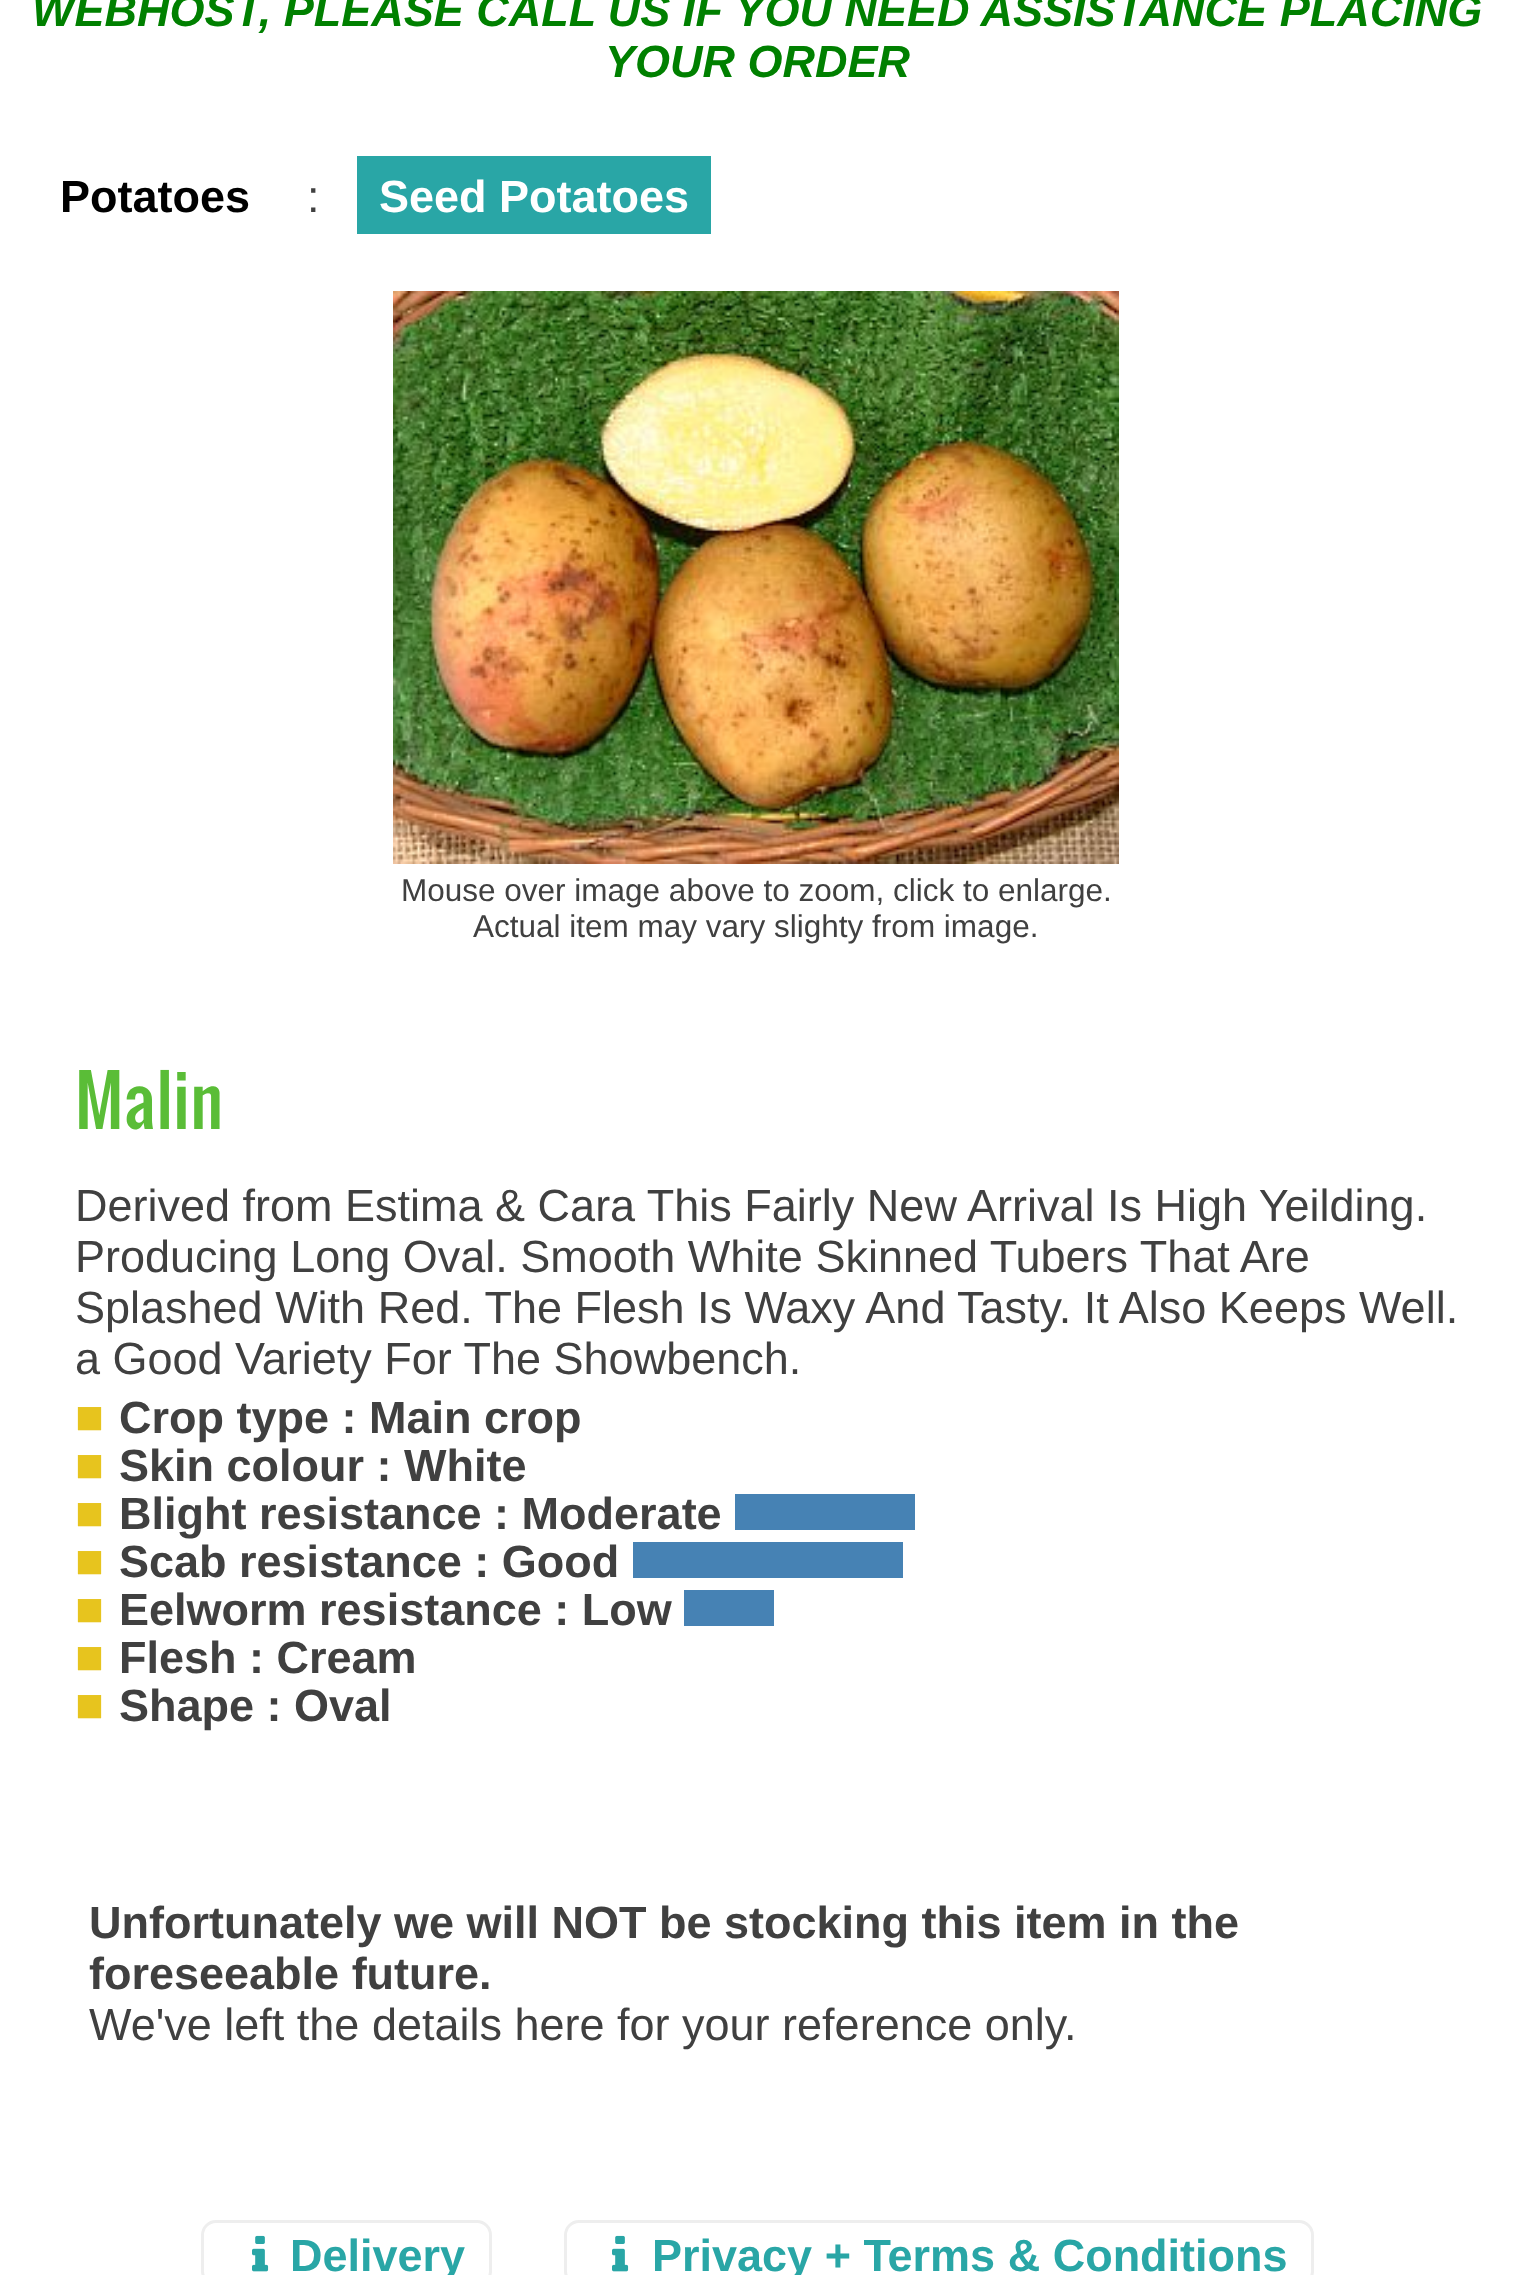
async function draw(canvas) {
  canvas.width = 1515
  canvas.height = 2275
  const ctx = canvas.getContext('2d')
  ctx.miterLimit = 4
  ctx.fontKerning = 'normal'
  async function loadImage(src) {
    const img = new Image()
    img.src = src
    await img.decode()
    return img
  }

  ctx.fillStyle = '#fff'
  ctx.fillRect(0, 0, 1515, 2275)
  ctx.font = 'italic bold 45px Liberation Sans'
  ctx.fillStyle = '#008000'
  ctx.fillText('WEBHOST, PLEASE CALL US IF YOU NEED ASSISTANCE PLACING', 32, 26)
  ctx.fillText('YOUR ORDER', 605, 77)
  ctx.font = 'bold 45px Liberation Sans'
  ctx.fillStyle = '#000'
  ctx.fillText('Potatoes', 60, 212)
  ctx.font = '45px Liberation Sans'
  ctx.fillStyle = '#404040'
  ctx.fillText(':', 307, 212)
  ctx.fillStyle = '#29a6a6'
  ctx.fillRect(357, 156, 354, 78)
  ctx.font = 'bold 45px Liberation Sans'
  ctx.fillStyle = '#fff'
  ctx.fillText('Seed Potatoes', 379, 212)
  ctx.drawImage(await loadImage('image0.png'), 393, 291, 726, 573)
  ctx.font = '31.5px Liberation Sans'
  ctx.fillStyle = '#404040'
  ctx.fillText('Mouse over image above to zoom, click to enlarge.', 401, 901)
  ctx.fillText('Actual item may vary slighty from image.', 473, 937)
  ctx.font = '67.5px Oswald'
  ctx.fillStyle = '#5abd37'
  ctx.fillText('Malin', 75, 1129)
  ctx.font = '45px Liberation Sans'
  ctx.fillStyle = '#404040'
  ctx.fillText('Derived from Estima & Cara This Fairly New Arrival Is High Yeilding.', 75, 1221)
  ctx.fillText('Producing Long Oval. Smooth White Skinned Tubers That Are', 75, 1272)
  ctx.fillText('Splashed With Red. The Flesh Is Waxy And Tasty. It Also Keeps Well.', 75, 1323)
  ctx.fillText('a Good Variety For The Showbench.', 75, 1374)
  ctx.font = 'bold 48px Liberation Sans'
  ctx.fillStyle = '#e7c41e'
  ctx.fillText('■', 75, 1433)
  ctx.font = 'bold 45px Liberation Sans'
  ctx.fillStyle = '#404040'
  ctx.fillText('Crop type : Main crop', 119, 1433)
  ctx.font = 'bold 48px Liberation Sans'
  ctx.fillStyle = '#e7c41e'
  ctx.fillText('■', 75, 1481)
  ctx.font = 'bold 45px Liberation Sans'
  ctx.fillStyle = '#404040'
  ctx.fillText('Skin colour : White', 119, 1481)
  ctx.font = 'bold 48px Liberation Sans'
  ctx.fillStyle = '#e7c41e'
  ctx.fillText('■', 75, 1529)
  ctx.font = 'bold 45px Liberation Sans'
  ctx.fillStyle = '#404040'
  ctx.fillText('Blight resistance : Moderate', 119, 1529)
  ctx.fillStyle = '#4682b4'
  ctx.fillRect(735, 1494, 180, 36)
  ctx.font = 'bold 48px Liberation Sans'
  ctx.fillStyle = '#e7c41e'
  ctx.fillText('■', 75, 1577)
  ctx.font = 'bold 45px Liberation Sans'
  ctx.fillStyle = '#404040'
  ctx.fillText('Scab resistance : Good', 119, 1577)
  ctx.fillStyle = '#4682b4'
  ctx.fillRect(633, 1542, 270, 36)
  ctx.font = 'bold 48px Liberation Sans'
  ctx.fillStyle = '#e7c41e'
  ctx.fillText('■', 75, 1625)
  ctx.font = 'bold 45px Liberation Sans'
  ctx.fillStyle = '#404040'
  ctx.fillText('Eelworm resistance : Low', 119, 1625)
  ctx.fillStyle = '#4682b4'
  ctx.fillRect(684, 1590, 90, 36)
  ctx.font = 'bold 48px Liberation Sans'
  ctx.fillStyle = '#e7c41e'
  ctx.fillText('■', 75, 1673)
  ctx.font = 'bold 45px Liberation Sans'
  ctx.fillStyle = '#404040'
  ctx.fillText('Flesh : Cream', 119, 1673)
  ctx.font = 'bold 48px Liberation Sans'
  ctx.fillStyle = '#e7c41e'
  ctx.fillText('■', 75, 1721)
  ctx.font = 'bold 45px Liberation Sans'
  ctx.fillStyle = '#404040'
  ctx.fillText('Shape : Oval', 119, 1721)
  ctx.fillText('Unfortunately we will NOT be stocking this item in the', 89, 1938)
  ctx.fillText('foreseeable future.', 89, 1989)
  ctx.font = '45px Liberation Sans'
  ctx.fillText('We\'ve left the details here for your reference only.', 89, 2040)
  ctx.beginPath()
  ctx.roundRect(202.5, 2221.5, 288, 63, 13.5)
  ctx.strokeStyle = '#eee'
  ctx.lineWidth = 3
  ctx.stroke()
  ctx.drawImage(await loadImage('image1.png'), 252, 2235, 17, 37)
  ctx.font = 'bold 45px Liberation Sans'
  ctx.fillStyle = '#29a6a6'
  ctx.fillText('Delivery', 290, 2271)
  ctx.beginPath()
  ctx.roundRect(565.5, 2221.5, 747, 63, 13.5)
  ctx.stroke()
  ctx.drawImage(await loadImage('image1.png'), 612, 2235, 17, 37)
  ctx.fillText('Privacy + Terms & Conditions', 652, 2271)
}

draw(document.querySelector('canvas'))
